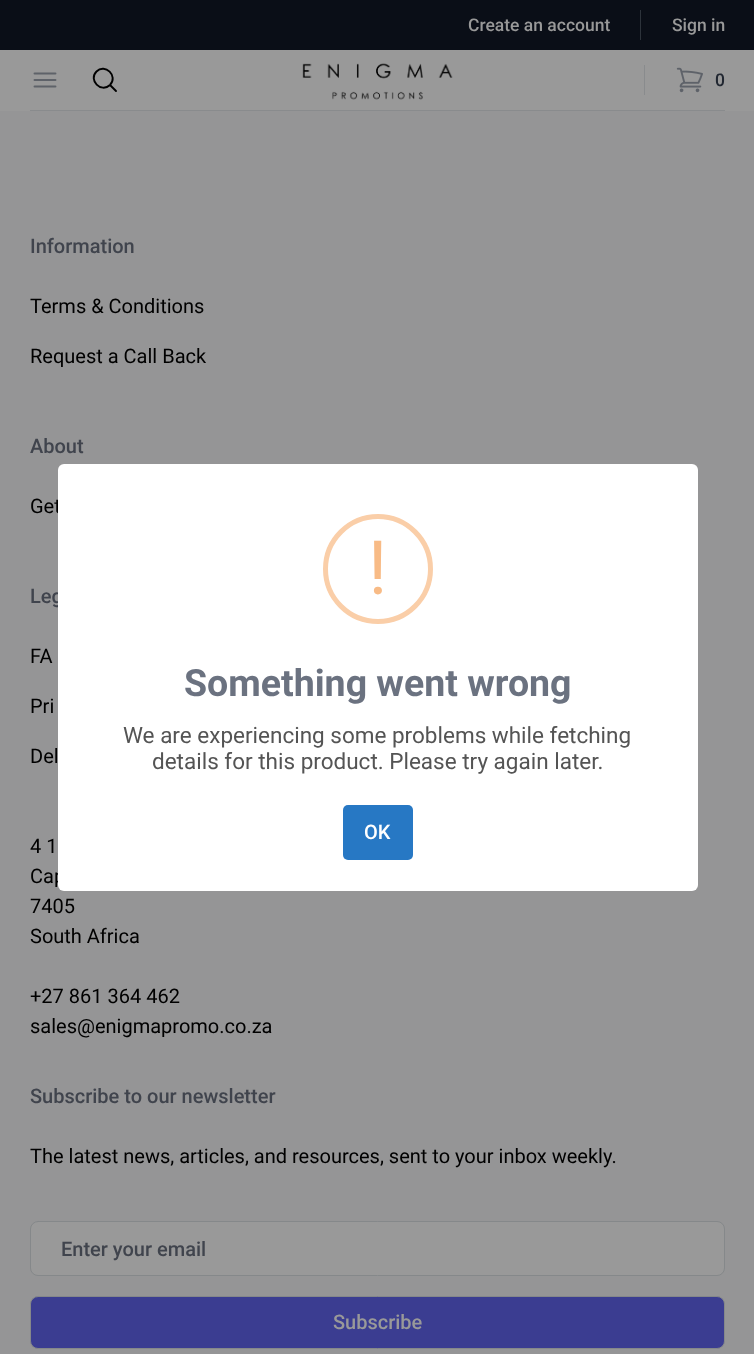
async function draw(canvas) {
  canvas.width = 754
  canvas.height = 1354
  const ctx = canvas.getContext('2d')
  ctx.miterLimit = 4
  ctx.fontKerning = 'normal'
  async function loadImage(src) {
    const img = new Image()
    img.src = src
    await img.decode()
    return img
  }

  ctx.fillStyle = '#999'
  ctx.fillRect(0, 0, 754, 1354)
  ctx.fillStyle = '#0a0e17'
  ctx.fillRect(0, 0, 754, 50)
  ctx.font = '500 17.5px Roboto'
  ctx.fillStyle = '#999'
  ctx.fillText('Create an account', 468, 31)
  ctx.fillStyle = '#2d333b'
  ctx.fillRect(640, 10, 1, 30)
  ctx.fillStyle = '#999'
  ctx.fillText('Sign in', 672, 31)
  ctx.fillStyle = '#898b8d'
  ctx.fillRect(30, 110, 695, 1)
  ctx.beginPath()
  ctx.moveTo(34.5, 73.5)
  ctx.lineTo(55.5, 73.5)
  ctx.moveTo(34.5, 80)
  ctx.lineTo(55.5, 80)
  ctx.moveTo(34.5, 86.5)
  ctx.lineTo(55.5, 86.5)
  ctx.strokeStyle = '#5e6269'
  ctx.lineWidth = 1.9
  ctx.lineCap = 'round'
  ctx.lineJoin = 'round'
  ctx.stroke()
  ctx.beginPath()
  ctx.moveTo(116, 91)
  ctx.lineTo(110, 85)
  ctx.moveTo(110, 85)
  ctx.bezierCurveTo(118.5, 76, 105, 63, 96.5, 71.5)
  ctx.bezierCurveTo(88, 80, 101, 93.5, 110, 85)
  ctx.closePath()
  ctx.strokeStyle = '#000'
  ctx.stroke()
  ctx.drawImage(await loadImage('image0.png'), 302, 63, 151, 37)
  ctx.fillRect(644, 65, 1, 30)
  ctx.drawImage(await loadImage('image1.png'), 676, 67, 27, 26)
  ctx.fillStyle = '#212731'
  ctx.fillText('0', 715, 86)
  ctx.fillStyle = '#959596'
  ctx.fillRect(0, 111, 754, 1243)
  ctx.font = '500 20px Roboto'
  ctx.fillStyle = '#40444d'
  ctx.fillText('Information', 30, 253)
  ctx.font = '20px Roboto'
  ctx.fillStyle = '#000'
  ctx.fillText('Terms & Conditions', 30, 313)
  ctx.fillText('Request a Call Back', 30, 363)
  ctx.font = '500 20px Roboto'
  ctx.fillStyle = '#40444d'
  ctx.fillText('About', 30, 453)
  ctx.font = '20px Roboto'
  ctx.fillStyle = '#000'
  ctx.fillText('Get', 30, 513)
  ctx.font = '500 20px Roboto'
  ctx.fillStyle = '#40444d'
  ctx.fillText('Leg', 30, 603)
  ctx.font = '20px Roboto'
  ctx.fillStyle = '#000'
  ctx.fillText('FA', 30, 663)
  ctx.fillText('Pri', 30, 713)
  ctx.fillText('Del', 30, 763)
  ctx.fillText('4 1', 30, 853)
  ctx.fillText('Cap', 30, 883)
  ctx.fillText('7405', 30, 913)
  ctx.fillText('South Africa', 30, 943)
  ctx.fillText('+27 861 364 462', 30, 1003)
  ctx.fillText('sales@enigmapromo.co.za', 30, 1033)
  ctx.font = '500 20px Roboto'
  ctx.fillStyle = '#40444d'
  ctx.fillText('Subscribe to our newsletter', 30, 1103)
  ctx.font = '20px Roboto'
  ctx.fillStyle = '#000'
  ctx.fillText('The latest news, articles, and resources, sent to your inbox weekly.', 30, 1163)
  ctx.fillStyle = '#999'
  ctx.beginPath()
  ctx.roundRect(30.5, 1221.5, 694, 54, 7.5)
  ctx.fill()
  ctx.strokeStyle = '#85888a'
  ctx.lineWidth = 1
  ctx.lineJoin = 'miter'
  ctx.stroke()
  ctx.font = '500 20px Roboto'
  ctx.fillStyle = '#40444d'
  ctx.fillText('Enter your email', 61, 1256)
  ctx.fillStyle = '#3b3d91'
  ctx.beginPath()
  ctx.roundRect(30.5, 1296.5, 694, 52, 7.5)
  ctx.fill()
  ctx.stroke()
  ctx.fillStyle = '#999'
  ctx.fillText('Subscribe', 333, 1329)
  ctx.fillStyle = '#fff'
  ctx.beginPath()
  ctx.roundRect(58, 464, 640, 427, 6)
  ctx.fill()
  ctx.beginPath()
  ctx.arc(378, 569, 52.5, 0, 2 * Math.PI)
  ctx.strokeStyle = '#facea8'
  ctx.lineWidth = 5
  ctx.stroke()
  ctx.font = '75px Roboto'
  ctx.fillStyle = '#f8bb86'
  ctx.fillText('!', 368, 594)
  ctx.font = 'bold 37.5px Roboto'
  ctx.fillStyle = '#6b7280'
  ctx.fillText('Something went wrong', 184, 696)
  ctx.font = '22.5px Roboto'
  ctx.fillStyle = '#545454'
  ctx.fillText('We are experiencing some problems while fetching', 123, 743)
  ctx.fillText('details for this product. Please try again later.', 152, 769)
  ctx.fillStyle = '#2778c4'
  ctx.beginPath()
  ctx.roundRect(343, 805, 70, 55, 5)
  ctx.fill()
  ctx.font = '500 20px Roboto'
  ctx.fillStyle = '#fff'
  ctx.fillText('OK', 364, 839)
}

draw(document.querySelector('canvas'))
